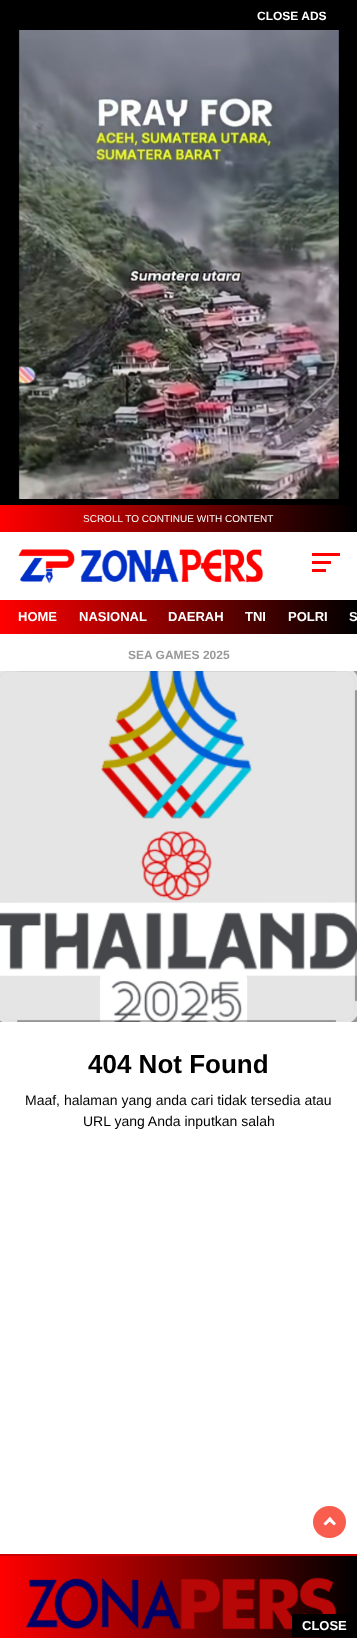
async function draw(canvas) {
  canvas.width = 357
  canvas.height = 1638
  const ctx = canvas.getContext('2d')
  ctx.miterLimit = 4
  ctx.fontKerning = 'normal'
  async function loadImage(src) {
    const img = new Image()
    img.src = src
    await img.decode()
    return img
  }
  let gradient

  ctx.fillStyle = '#fff'
  ctx.fillRect(0, 0, 357, 1638)
  ctx.fillStyle = '#000'
  ctx.fillRect(0, 0, 357, 505)
  ctx.font = 'bold 12px Liberation Sans'
  ctx.fillStyle = '#fff'
  ctx.fillText('CLOSE ADS', 257, 20)
  ctx.drawImage(await loadImage('image0.png'), 18, 30, 321, 469)
  gradient = ctx.createLinearGradient(0, 519, 357, 519)
  gradient.addColorStop(0, '#f00')
  gradient.addColorStop(1, '#000')
  ctx.fillStyle = gradient
  ctx.fillRect(0, 505, 357, 27)
  ctx.font = '10px Liberation Sans'
  ctx.fillStyle = '#fff'
  ctx.fillText('SCROLL TO CONTINUE WITH CONTENT', 83, 522)
  ctx.drawImage(await loadImage('image1.png'), 18, 549, 245, 35)
  ctx.fillStyle = '#f00'
  ctx.fillRect(312, 553, 28, 3)
  ctx.fillRect(312, 561, 19, 3)
  ctx.fillRect(312, 569, 14, 3)
  gradient = ctx.createLinearGradient(0, 617, 357, 617)
  gradient.addColorStop(0, '#f00')
  gradient.addColorStop(1, '#000')
  ctx.fillStyle = gradient
  ctx.fillRect(0, 600, 357, 34)
  ctx.font = 'bold 13px Liberation Sans'
  ctx.fillStyle = '#fff'
  ctx.fillText('HOME', 18, 621)
  ctx.fillText('NASIONAL', 79, 621)
  ctx.fillText('DAERAH', 168, 621)
  ctx.fillText('TNI', 245, 621)
  ctx.fillText('POLRI', 288, 621)
  ctx.fillText('S', 349, 621)
  ctx.font = 'bold 12px Liberation Sans'
  ctx.fillStyle = '#999'
  ctx.fillText('SEA GAMES 2025', 128, 659)
  ctx.drawImage(await loadImage('image2.png'), 0, 671, 357, 351)
  ctx.font = 'bold 26px Liberation Sans'
  ctx.fillStyle = '#000'
  ctx.fillText('404 Not Found', 88, 1073)
  ctx.font = '14px Liberation Sans'
  ctx.fillText('Maaf, halaman yang anda cari tidak tersedia atau', 25, 1105)
  ctx.fillText('URL yang Anda inputkan salah', 83, 1126)
  gradient = ctx.createLinearGradient(0, 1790, 357, 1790)
  gradient.addColorStop(0, '#f00')
  gradient.addColorStop(1, '#000')
  ctx.fillStyle = gradient
  ctx.fillRect(0, 1556, 357, 82)
  ctx.fillStyle = '#c00'
  ctx.fillRect(0, 1554, 357, 2)
  ctx.fillStyle = '#f85d4d'
  ctx.beginPath()
  ctx.roundRect(313, 1506, 33, 32, 16)
  ctx.fill()
  ctx.fillStyle = '#fff'
  ctx.beginPath()
  ctx.moveTo(325.5, 1525.5)
  ctx.lineTo(323.5, 1523.5)
  ctx.lineTo(330, 1517)
  ctx.lineTo(332, 1519.5)
  ctx.closePath()
  ctx.fill()
  ctx.beginPath()
  ctx.moveTo(334, 1525.5)
  ctx.lineTo(327.5, 1519.5)
  ctx.lineTo(330, 1517)
  ctx.lineTo(336, 1523.5)
  ctx.closePath()
  ctx.fill()
  ctx.drawImage(await loadImage('image3.png'), 25, 1577, 312, 53)
  ctx.fillStyle = '#000'
  ctx.fillRect(292, 1614, 62, 23)
  ctx.font = 'bold 13px Liberation Sans'
  ctx.fillStyle = '#fff'
  ctx.fillText('CLOSE', 302, 1630)
}

draw(document.querySelector('canvas'))
